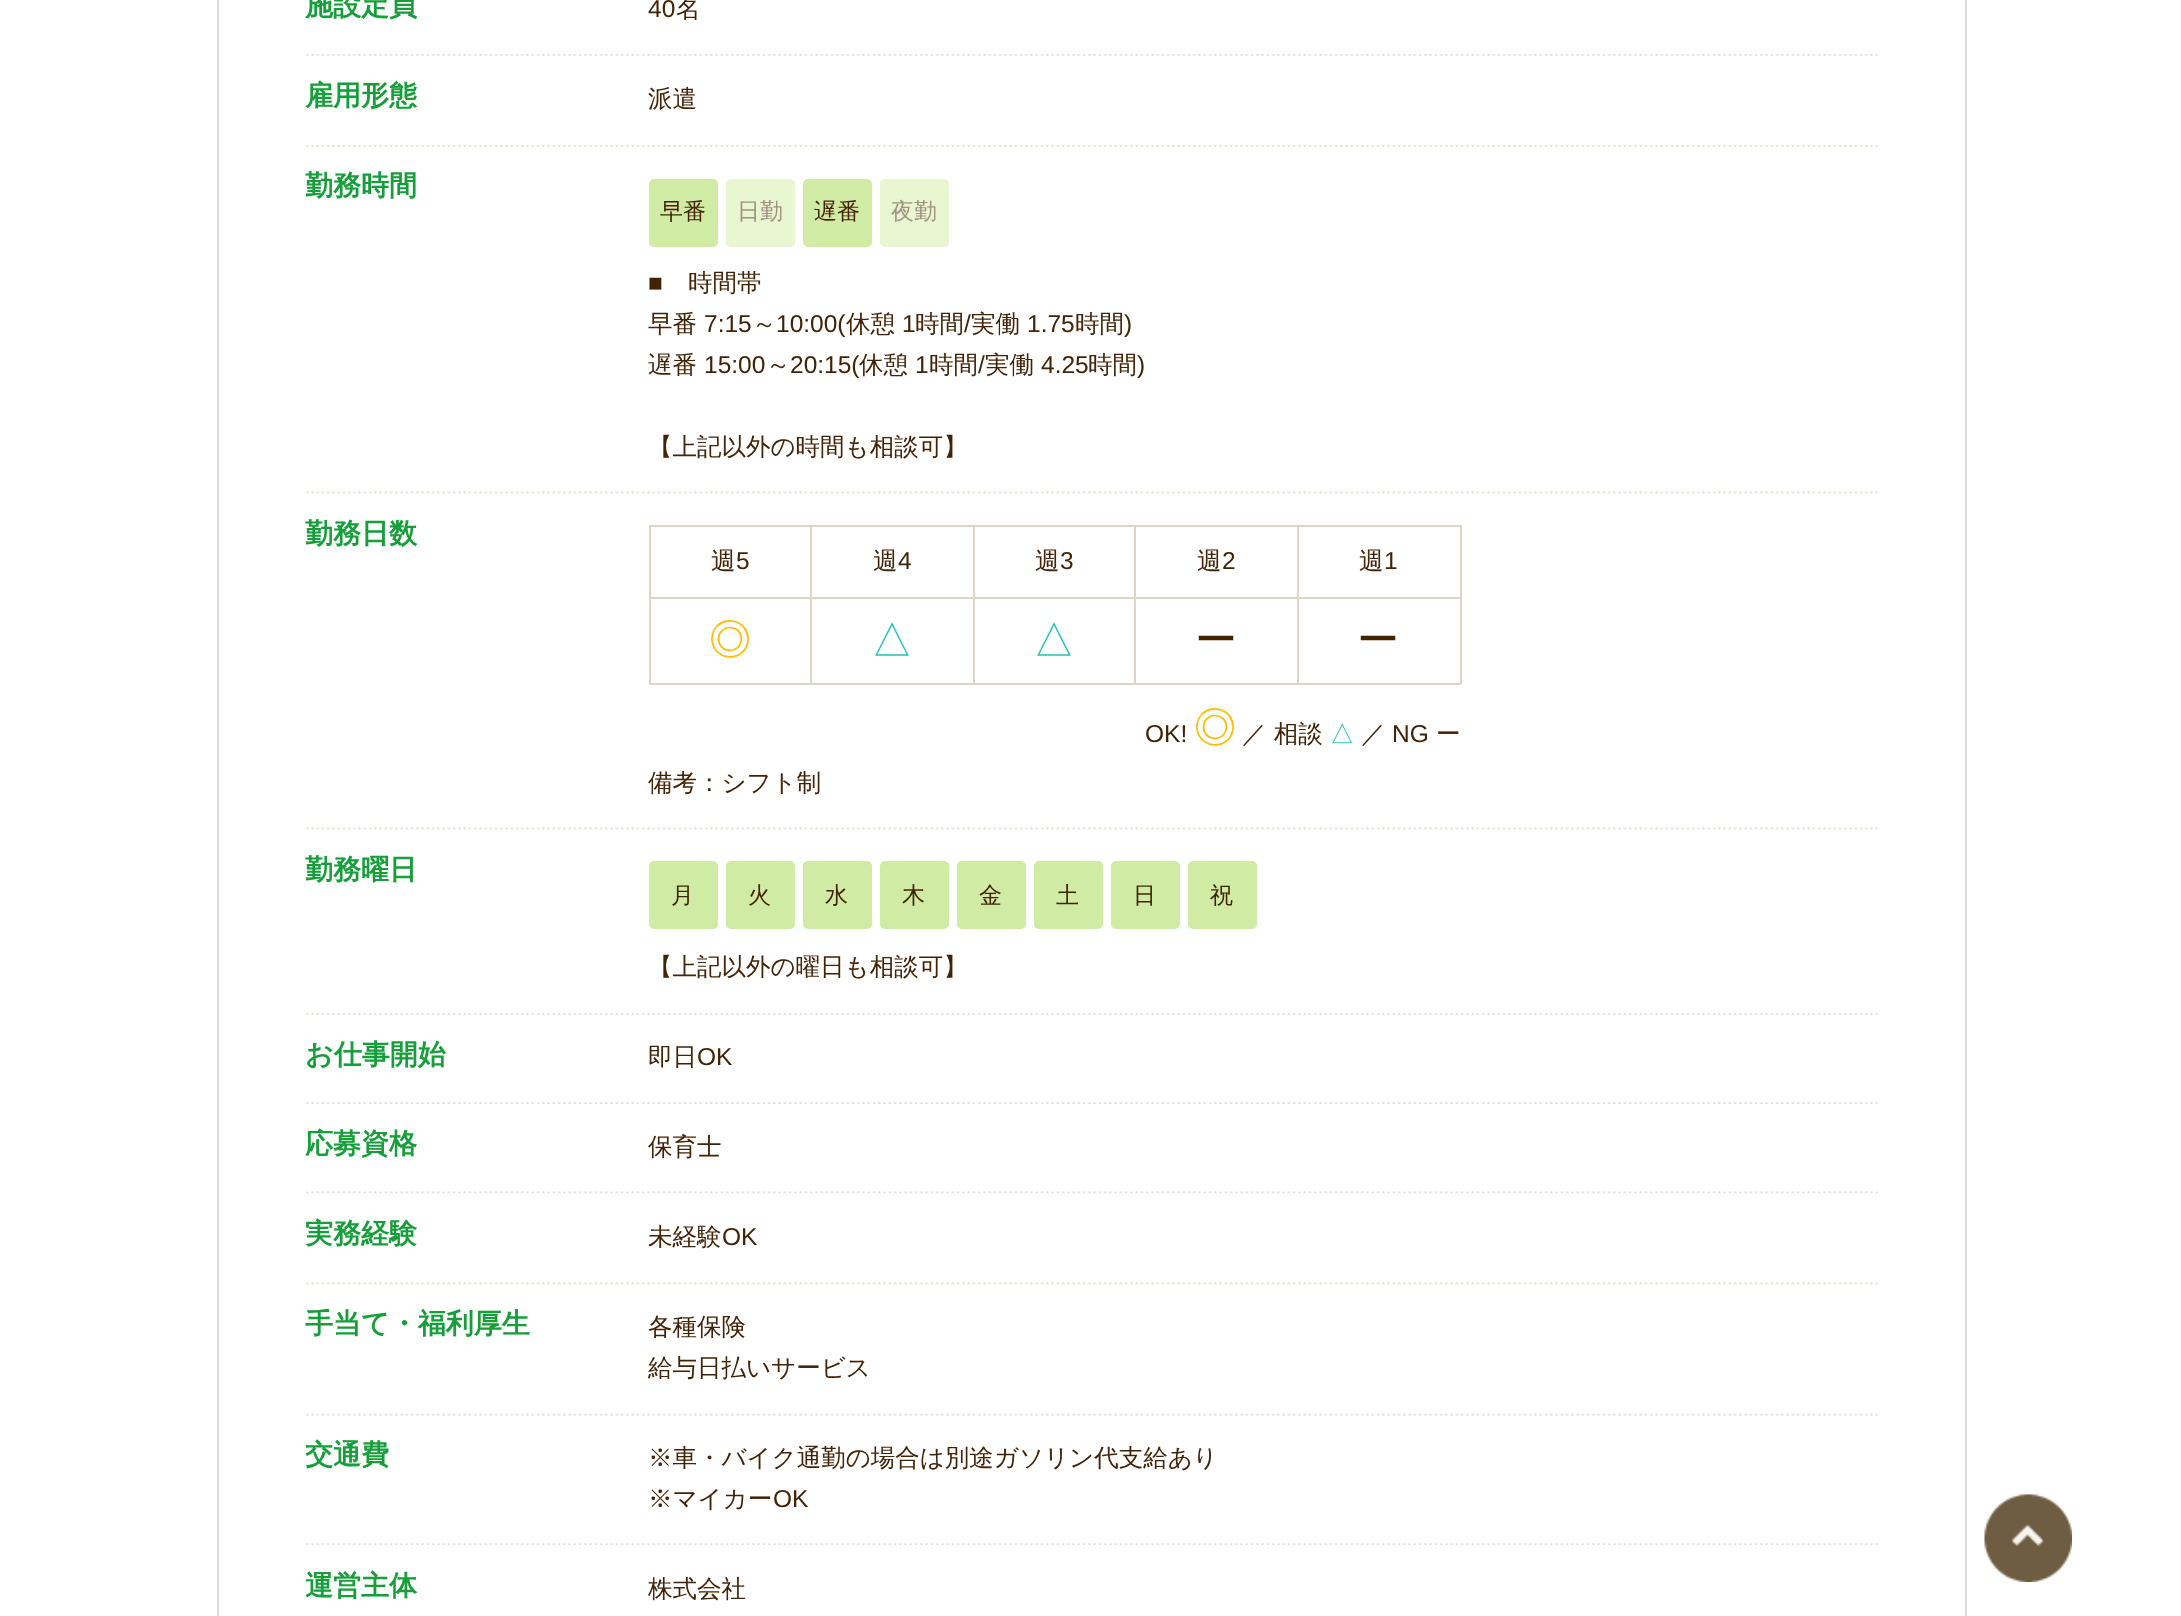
async function draw(canvas) {
  canvas.width = 2181
  canvas.height = 1616
  const ctx = canvas.getContext('2d')
  ctx.miterLimit = 4
  ctx.fontKerning = 'normal'
  async function loadImage(src) {
    const img = new Image()
    img.src = src
    await img.decode()
    return img
  }

  ctx.fillStyle = '#fff'
  ctx.fillRect(0, 0, 2181, 1616)
  ctx.fillStyle = '#ddd'
  ctx.beginPath()
  ctx.moveTo(217, -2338)
  ctx.lineTo(1967, -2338)
  ctx.lineTo(1967, 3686)
  ctx.bezierCurveTo(1967, 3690, 1963, 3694, 1958, 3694)
  ctx.lineTo(226, 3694)
  ctx.bezierCurveTo(221, 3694, 217, 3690, 217, 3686)
  ctx.closePath()
  ctx.moveTo(219, -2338)
  ctx.lineTo(1965, -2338)
  ctx.lineTo(1965, 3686)
  ctx.bezierCurveTo(1965, 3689, 1962, 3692, 1958, 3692)
  ctx.lineTo(226, 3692)
  ctx.bezierCurveTo(222, 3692, 219, 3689, 219, 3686)
  ctx.closePath()
  ctx.fill('evenodd')
  ctx.font = 'bold 28px WenQuanYi Zen Hei'
  ctx.fillStyle = '#159e39'
  ctx.fillText('施設定員', 305, 15)
  ctx.drawImage(await loadImage('image0.png'), 306, 54, 1572, 2)
  ctx.font = '24.5px Liberation Sans'
  ctx.fillStyle = '#432306'
  ctx.fillText('40', 648, 17)
  ctx.font = '500 24.5px WenQuanYi Zen Hei'
  ctx.fillText('名', 676, 17)
  ctx.font = 'bold 28px WenQuanYi Zen Hei'
  ctx.fillStyle = '#159e39'
  ctx.fillText('雇用形態', 305, 105)
  ctx.drawImage(await loadImage('image0.png'), 306, 145, 1572, 2)
  ctx.font = '500 24.5px WenQuanYi Zen Hei'
  ctx.fillStyle = '#432306'
  ctx.fillText('派遣', 648, 107)
  ctx.font = 'bold 28px WenQuanYi Zen Hei'
  ctx.fillStyle = '#159e39'
  ctx.fillText('勤務時間', 305, 195)
  ctx.drawImage(await loadImage('image1.png'), 306, 491, 1572, 3)
  ctx.fillStyle = '#d0eca4'
  ctx.beginPath()
  ctx.roundRect(649, 179, 69, 68, 5)
  ctx.fill()
  ctx.font = '500 23px WenQuanYi Zen Hei'
  ctx.fillStyle = '#432306'
  ctx.fillText('早番', 660, 219)
  ctx.fillStyle = '#e8f6d2'
  ctx.beginPath()
  ctx.roundRect(726, 179, 69, 68, 5)
  ctx.fill()
  ctx.fillStyle = '#a19183'
  ctx.fillText('日勤', 737, 219)
  ctx.fillStyle = '#d0eca4'
  ctx.beginPath()
  ctx.roundRect(803, 179, 69, 68, 5)
  ctx.fill()
  ctx.fillStyle = '#432306'
  ctx.fillText('遅番', 814, 219)
  ctx.fillStyle = '#e8f6d2'
  ctx.beginPath()
  ctx.roundRect(880, 179, 69, 68, 5)
  ctx.fill()
  ctx.fillStyle = '#a19183'
  ctx.fillText('夜勤', 891, 219)
  ctx.font = '24.5px Liberation Sans'
  ctx.fillStyle = '#432306'
  ctx.fillText('■', 648, 291)
  ctx.font = '500 24.5px WenQuanYi Zen Hei'
  ctx.fillText('時間帯', 688, 291)
  ctx.fillText('早番', 648, 332)
  ctx.font = '24.5px Liberation Sans'
  ctx.fillText('7:15', 704, 332)
  ctx.font = '500 24.5px WenQuanYi Zen Hei'
  ctx.fillText('～', 752, 332)
  ctx.font = '24.5px Liberation Sans'
  ctx.fillText('10:00(', 776, 332)
  ctx.font = '500 24.5px WenQuanYi Zen Hei'
  ctx.fillText('休憩', 846, 332)
  ctx.font = '24.5px Liberation Sans'
  ctx.fillText('1', 902, 332)
  ctx.font = '500 24.5px WenQuanYi Zen Hei'
  ctx.fillText('時間', 915, 332)
  ctx.font = '24.5px Liberation Sans'
  ctx.fillText('/', 964, 332)
  ctx.font = '500 24.5px WenQuanYi Zen Hei'
  ctx.fillText('実働', 971, 332)
  ctx.font = '24.5px Liberation Sans'
  ctx.fillText('1.75', 1027, 332)
  ctx.font = '500 24.5px WenQuanYi Zen Hei'
  ctx.fillText('時間', 1075, 332)
  ctx.font = '24.5px Liberation Sans'
  ctx.fillText(')', 1124, 332)
  ctx.font = '500 24.5px WenQuanYi Zen Hei'
  ctx.fillText('遅番', 648, 373)
  ctx.font = '24.5px Liberation Sans'
  ctx.fillText('15:00', 704, 373)
  ctx.font = '500 24.5px WenQuanYi Zen Hei'
  ctx.fillText('～', 766, 373)
  ctx.font = '24.5px Liberation Sans'
  ctx.fillText('20:15(', 790, 373)
  ctx.font = '500 24.5px WenQuanYi Zen Hei'
  ctx.fillText('休憩', 859, 373)
  ctx.font = '24.5px Liberation Sans'
  ctx.fillText('1', 915, 373)
  ctx.font = '500 24.5px WenQuanYi Zen Hei'
  ctx.fillText('時間', 929, 373)
  ctx.font = '24.5px Liberation Sans'
  ctx.fillText('/', 978, 373)
  ctx.font = '500 24.5px WenQuanYi Zen Hei'
  ctx.fillText('実働', 985, 373)
  ctx.font = '24.5px Liberation Sans'
  ctx.fillText('4.25', 1041, 373)
  ctx.font = '500 24.5px WenQuanYi Zen Hei'
  ctx.fillText('時間', 1088, 373)
  ctx.font = '24.5px Liberation Sans'
  ctx.fillText(')', 1137, 373)
  ctx.font = '500 24.5px WenQuanYi Zen Hei'
  ctx.fillText('【上記以外の時間も相談可】', 648, 455)
  ctx.font = 'bold 28px WenQuanYi Zen Hei'
  ctx.fillStyle = '#159e39'
  ctx.fillText('勤務日数', 305, 543)
  ctx.drawImage(await loadImage('image2.png'), 306, 827, 1572, 3)
  ctx.fillStyle = '#ded5c7'
  ctx.fillRect(1297, 525, 164, 2)
  ctx.fillRect(1297, 597, 164, 2)
  ctx.fillRect(1460, 597, 2, 87)
  ctx.fillRect(1297, 683, 164, 2)
  ctx.fillRect(1297, 597, 2, 87)
  ctx.fillRect(1134, 597, 165, 2)
  ctx.fillRect(1297, 525, 2, 74)
  ctx.fillRect(1134, 525, 165, 2)
  ctx.fillRect(1134, 683, 165, 2)
  ctx.fillRect(1134, 597, 2, 87)
  ctx.fillRect(973, 597, 163, 2)
  ctx.fillRect(1134, 525, 2, 74)
  ctx.fillRect(973, 525, 163, 2)
  ctx.fillRect(973, 683, 163, 2)
  ctx.fillRect(973, 597, 2, 87)
  ctx.fillRect(810, 597, 165, 2)
  ctx.fillRect(973, 525, 2, 74)
  ctx.fillRect(810, 525, 165, 2)
  ctx.fillRect(810, 683, 165, 2)
  ctx.fillRect(810, 597, 2, 87)
  ctx.fillRect(649, 597, 163, 2)
  ctx.fillRect(810, 525, 2, 74)
  ctx.fillRect(649, 525, 163, 2)
  ctx.fillRect(649, 683, 163, 2)
  ctx.fillRect(649, 597, 2, 87)
  ctx.fillRect(649, 525, 2, 74)
  ctx.font = '500 24.5px WenQuanYi Zen Hei'
  ctx.fillStyle = '#432306'
  ctx.fillText('週', 711, 569)
  ctx.font = '24.5px Liberation Sans'
  ctx.fillText('5', 736, 569)
  ctx.font = '500 24.5px WenQuanYi Zen Hei'
  ctx.fillText('週', 873, 569)
  ctx.font = '24.5px Liberation Sans'
  ctx.fillText('4', 898, 569)
  ctx.font = '500 24.5px WenQuanYi Zen Hei'
  ctx.fillText('週', 1035, 569)
  ctx.font = '24.5px Liberation Sans'
  ctx.fillText('3', 1060, 569)
  ctx.font = '500 24.5px WenQuanYi Zen Hei'
  ctx.fillText('週', 1197, 569)
  ctx.font = '24.5px Liberation Sans'
  ctx.fillText('2', 1222, 569)
  ctx.fillStyle = '#ded5c7'
  ctx.fillRect(1460, 525, 2, 74)
  ctx.font = '500 24.5px WenQuanYi Zen Hei'
  ctx.fillStyle = '#432306'
  ctx.fillText('週', 1359, 569)
  ctx.font = '24.5px Liberation Sans'
  ctx.fillText('1', 1384, 569)
  ctx.font = '500 42px WenQuanYi Zen Hei'
  ctx.fillStyle = '#fdbd02'
  ctx.fillText('◎', 709, 654)
  ctx.fillStyle = '#2abfbf'
  ctx.fillText('△', 871, 654)
  ctx.fillText('△', 1033, 654)
  ctx.fillStyle = '#432306'
  ctx.fillText('ー', 1195, 654)
  ctx.fillText('ー', 1357, 654)
  ctx.font = '24.5px Liberation Sans'
  ctx.fillText('OK!', 1145, 742)
  ctx.font = '500 42px WenQuanYi Zen Hei'
  ctx.fillStyle = '#fdbd02'
  ctx.fillText('◎', 1194, 742)
  ctx.font = '500 24.5px WenQuanYi Zen Hei'
  ctx.fillStyle = '#432306'
  ctx.fillText('／ 相談', 1242, 742)
  ctx.fillStyle = '#2abfbf'
  ctx.fillText('△', 1330, 742)
  ctx.fillStyle = '#432306'
  ctx.fillText('／', 1361, 742)
  ctx.font = '24.5px Liberation Sans'
  ctx.fillText('NG', 1392, 742)
  ctx.font = '500 24.5px WenQuanYi Zen Hei'
  ctx.fillText('ー', 1436, 742)
  ctx.fillText('備考：シフト制', 648, 791)
  ctx.font = 'bold 28px WenQuanYi Zen Hei'
  ctx.fillStyle = '#159e39'
  ctx.fillText('勤務曜日', 305, 879)
  ctx.drawImage(await loadImage('image0.png'), 306, 1013, 1572, 2)
  ctx.fillStyle = '#d0eca4'
  ctx.beginPath()
  ctx.roundRect(649, 861, 69, 68, 5)
  ctx.fill()
  ctx.font = '500 23px WenQuanYi Zen Hei'
  ctx.fillStyle = '#432306'
  ctx.fillText('月', 671, 903)
  ctx.fillStyle = '#d0eca4'
  ctx.beginPath()
  ctx.roundRect(726, 861, 69, 68, 5)
  ctx.fill()
  ctx.fillStyle = '#432306'
  ctx.fillText('火', 748, 903)
  ctx.fillStyle = '#d0eca4'
  ctx.beginPath()
  ctx.roundRect(803, 861, 69, 68, 5)
  ctx.fill()
  ctx.fillStyle = '#432306'
  ctx.fillText('水', 825, 903)
  ctx.fillStyle = '#d0eca4'
  ctx.beginPath()
  ctx.roundRect(880, 861, 69, 68, 5)
  ctx.fill()
  ctx.fillStyle = '#432306'
  ctx.fillText('木', 902, 903)
  ctx.fillStyle = '#d0eca4'
  ctx.beginPath()
  ctx.roundRect(957, 861, 69, 68, 5)
  ctx.fill()
  ctx.fillStyle = '#432306'
  ctx.fillText('金', 979, 903)
  ctx.fillStyle = '#d0eca4'
  ctx.beginPath()
  ctx.roundRect(1034, 861, 69, 68, 5)
  ctx.fill()
  ctx.fillStyle = '#432306'
  ctx.fillText('土', 1056, 903)
  ctx.fillStyle = '#d0eca4'
  ctx.beginPath()
  ctx.roundRect(1111, 861, 69, 68, 5)
  ctx.fill()
  ctx.fillStyle = '#432306'
  ctx.fillText('日', 1133, 903)
  ctx.fillStyle = '#d0eca4'
  ctx.beginPath()
  ctx.roundRect(1188, 861, 69, 68, 5)
  ctx.fill()
  ctx.fillStyle = '#432306'
  ctx.fillText('祝', 1210, 903)
  ctx.font = '500 24.5px WenQuanYi Zen Hei'
  ctx.fillText('【上記以外の曜日も相談可】', 648, 975)
  ctx.font = 'bold 28px WenQuanYi Zen Hei'
  ctx.fillStyle = '#159e39'
  ctx.fillText('お仕事開始', 305, 1064)
  ctx.drawImage(await loadImage('image3.png'), 306, 1102, 1572, 2)
  ctx.font = '500 24.5px WenQuanYi Zen Hei'
  ctx.fillStyle = '#432306'
  ctx.fillText('即日', 648, 1065)
  ctx.font = '24.5px Liberation Sans'
  ctx.fillText('OK', 697, 1065)
  ctx.font = 'bold 28px WenQuanYi Zen Hei'
  ctx.fillStyle = '#159e39'
  ctx.fillText('応募資格', 305, 1153)
  ctx.drawImage(await loadImage('image1.png'), 306, 1191, 1572, 3)
  ctx.font = '500 24.5px WenQuanYi Zen Hei'
  ctx.fillStyle = '#432306'
  ctx.fillText('保育士', 648, 1155)
  ctx.font = 'bold 28px WenQuanYi Zen Hei'
  ctx.fillStyle = '#159e39'
  ctx.fillText('実務経験', 305, 1243)
  ctx.drawImage(await loadImage('image1.png'), 306, 1282, 1572, 3)
  ctx.font = '500 24.5px WenQuanYi Zen Hei'
  ctx.fillStyle = '#432306'
  ctx.fillText('未経験', 648, 1245)
  ctx.font = '24.5px Liberation Sans'
  ctx.fillText('OK', 722, 1245)
  ctx.font = 'bold 28px WenQuanYi Zen Hei'
  ctx.fillStyle = '#159e39'
  ctx.fillText('手当て・福利厚生', 305, 1333)
  ctx.drawImage(await loadImage('image4.png'), 306, 1413, 1572, 3)
  ctx.font = '500 24.5px WenQuanYi Zen Hei'
  ctx.fillStyle = '#432306'
  ctx.fillText('各種保険', 648, 1335)
  ctx.fillText('給与日払いサービス', 648, 1376)
  ctx.font = 'bold 28px WenQuanYi Zen Hei'
  ctx.fillStyle = '#159e39'
  ctx.fillText('交通費', 305, 1464)
  ctx.drawImage(await loadImage('image3.png'), 306, 1543, 1572, 2)
  ctx.font = '500 24.5px WenQuanYi Zen Hei'
  ctx.fillStyle = '#432306'
  ctx.fillText('※車・バイク通勤の場合は別途ガソリン代支給あり', 648, 1466)
  ctx.fillText('※マイカー', 648, 1507)
  ctx.font = '24.5px Liberation Sans'
  ctx.fillText('OK', 773, 1507)
  ctx.font = 'bold 28px WenQuanYi Zen Hei'
  ctx.fillStyle = '#159e39'
  ctx.fillText('運営主体', 305, 1595)
  ctx.font = '500 24.5px WenQuanYi Zen Hei'
  ctx.fillStyle = '#432306'
  ctx.fillText('株式会社', 648, 1597)
  ctx.drawImage(await loadImage('image5.png'), 1984, 1494, 88, 88)
}

draw(document.querySelector('canvas'))
